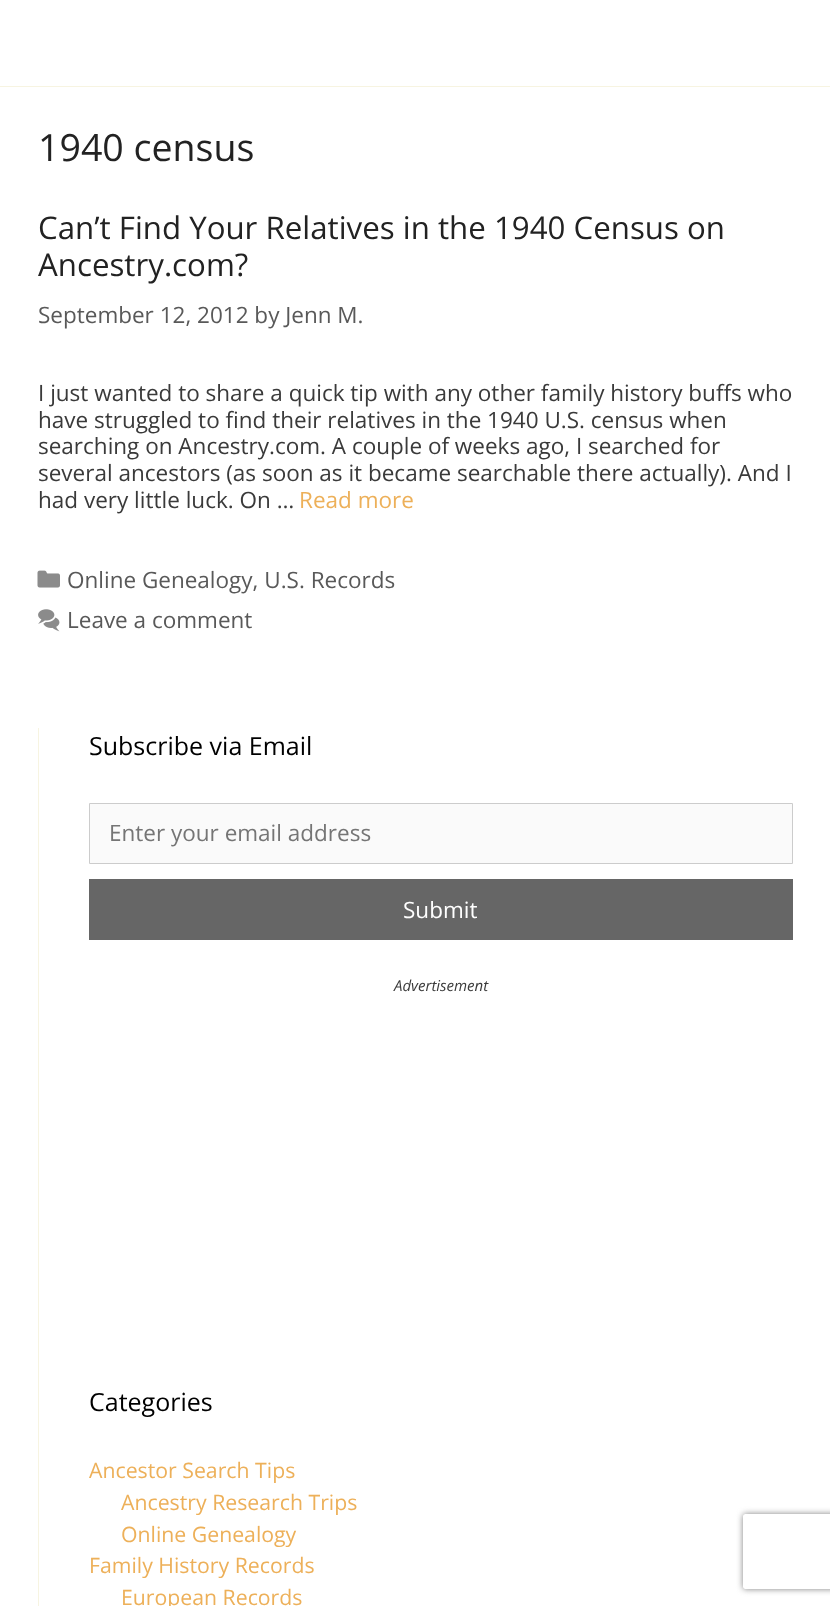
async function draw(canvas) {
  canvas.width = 830
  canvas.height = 1606
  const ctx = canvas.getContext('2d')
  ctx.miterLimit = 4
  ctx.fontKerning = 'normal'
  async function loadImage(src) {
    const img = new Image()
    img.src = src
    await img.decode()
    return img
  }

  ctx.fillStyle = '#fff'
  ctx.fillRect(0, 0, 830, 1606)
  ctx.fillStyle = '#f7f4e1'
  ctx.fillRect(0, 86, 830, 1)
  ctx.font = '37.5px Open Sans'
  ctx.fillStyle = '#222'
  ctx.fillText('1940 census', 38, 161)
  ctx.font = '31.25px Open Sans'
  ctx.fillText('Can’t Find Your Relatives in the 1940 Census on', 38, 239)
  ctx.fillText('Ancestry.com?', 38, 276)
  ctx.font = '22.5px Open Sans'
  ctx.fillStyle = '#595959'
  ctx.fillText('September 12, 2012 by Jenn M.', 38, 323)
  ctx.fillStyle = '#3a3a3a'
  ctx.fillText('I just wanted to share a quick tip with any other family history buffs who', 38, 401)
  ctx.fillText('have struggled to find their relatives in the 1940 U.S. census when', 38, 428)
  ctx.fillText('searching on Ancestry.com. A couple of weeks ago, I searched for', 38, 454)
  ctx.fillText('several ancestors (as soon as it became searchable there actually). And I', 38, 481)
  ctx.fillText('had very little luck. On …', 38, 508)
  ctx.fillStyle = '#edb059'
  ctx.fillText('Read more', 299, 508)
  ctx.drawImage(await loadImage('image0.png'), 37, 570, 23, 18)
  ctx.fillStyle = '#595959'
  ctx.fillText('Online Genealogy, U.S. Records', 67, 588)
  ctx.drawImage(await loadImage('image1.png'), 38, 609, 22, 23)
  ctx.fillText('Leave a comment', 67, 628)
  ctx.fillStyle = '#f7f4e1'
  ctx.fillRect(38, 728, 1, 878)
  ctx.font = '25px Open Sans'
  ctx.fillStyle = '#000'
  ctx.fillText('Subscribe via Email', 89, 755)
  ctx.fillStyle = '#fafafa'
  ctx.beginPath()
  ctx.rect(89.5, 803.5, 703, 60)
  ctx.fill()
  ctx.strokeStyle = '#ccc'
  ctx.stroke()
  ctx.font = '22.5px Open Sans'
  ctx.fillStyle = '#757575'
  ctx.fillText('Enter your email address', 109, 841)
  ctx.fillStyle = '#666'
  ctx.fillRect(89, 879, 704, 61)
  ctx.fillStyle = '#fff'
  ctx.fillText('Submit', 403, 918)
  ctx.save()
  ctx.beginPath()
  ctx.moveTo(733, 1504)
  ctx.lineTo(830, 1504)
  ctx.lineTo(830, 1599)
  ctx.lineTo(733, 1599)
  ctx.closePath()
  ctx.moveTo(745.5, 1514)
  ctx.lineTo(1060.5, 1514)
  ctx.bezierCurveTo(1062, 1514, 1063, 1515, 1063, 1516.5)
  ctx.lineTo(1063, 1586.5)
  ctx.bezierCurveTo(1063, 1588, 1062, 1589, 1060.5, 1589)
  ctx.lineTo(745.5, 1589)
  ctx.bezierCurveTo(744, 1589, 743, 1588, 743, 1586.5)
  ctx.lineTo(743, 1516.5)
  ctx.bezierCurveTo(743, 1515, 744, 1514, 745.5, 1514)
  ctx.closePath()
  ctx.clip('evenodd')
  ctx.fillStyle = '#808080'
  ctx.filter = 'blur(3px)'
  ctx.beginPath()
  ctx.roundRect(743, 1514, 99, 75, 2.5)
  ctx.fill()
  ctx.filter = 'none'
  ctx.restore()
  ctx.font = 'italic 15px Open Sans'
  ctx.fillStyle = '#3a3a3a'
  ctx.fillText('Advertisement', 394, 991)
  ctx.font = '25px Open Sans'
  ctx.fillStyle = '#000'
  ctx.fillText('Categories', 89, 1411)
  ctx.font = '21.25px Open Sans'
  ctx.fillStyle = '#edb059'
  ctx.fillText('Ancestor Search Tips', 89, 1478)
  ctx.fillText('Ancestry Research Trips', 121, 1510)
  ctx.fillText('Online Genealogy', 121, 1542)
  ctx.fillText('Family History Records', 89, 1573)
  ctx.fillText('European Records', 121, 1605)
}

draw(document.querySelector('canvas'))
